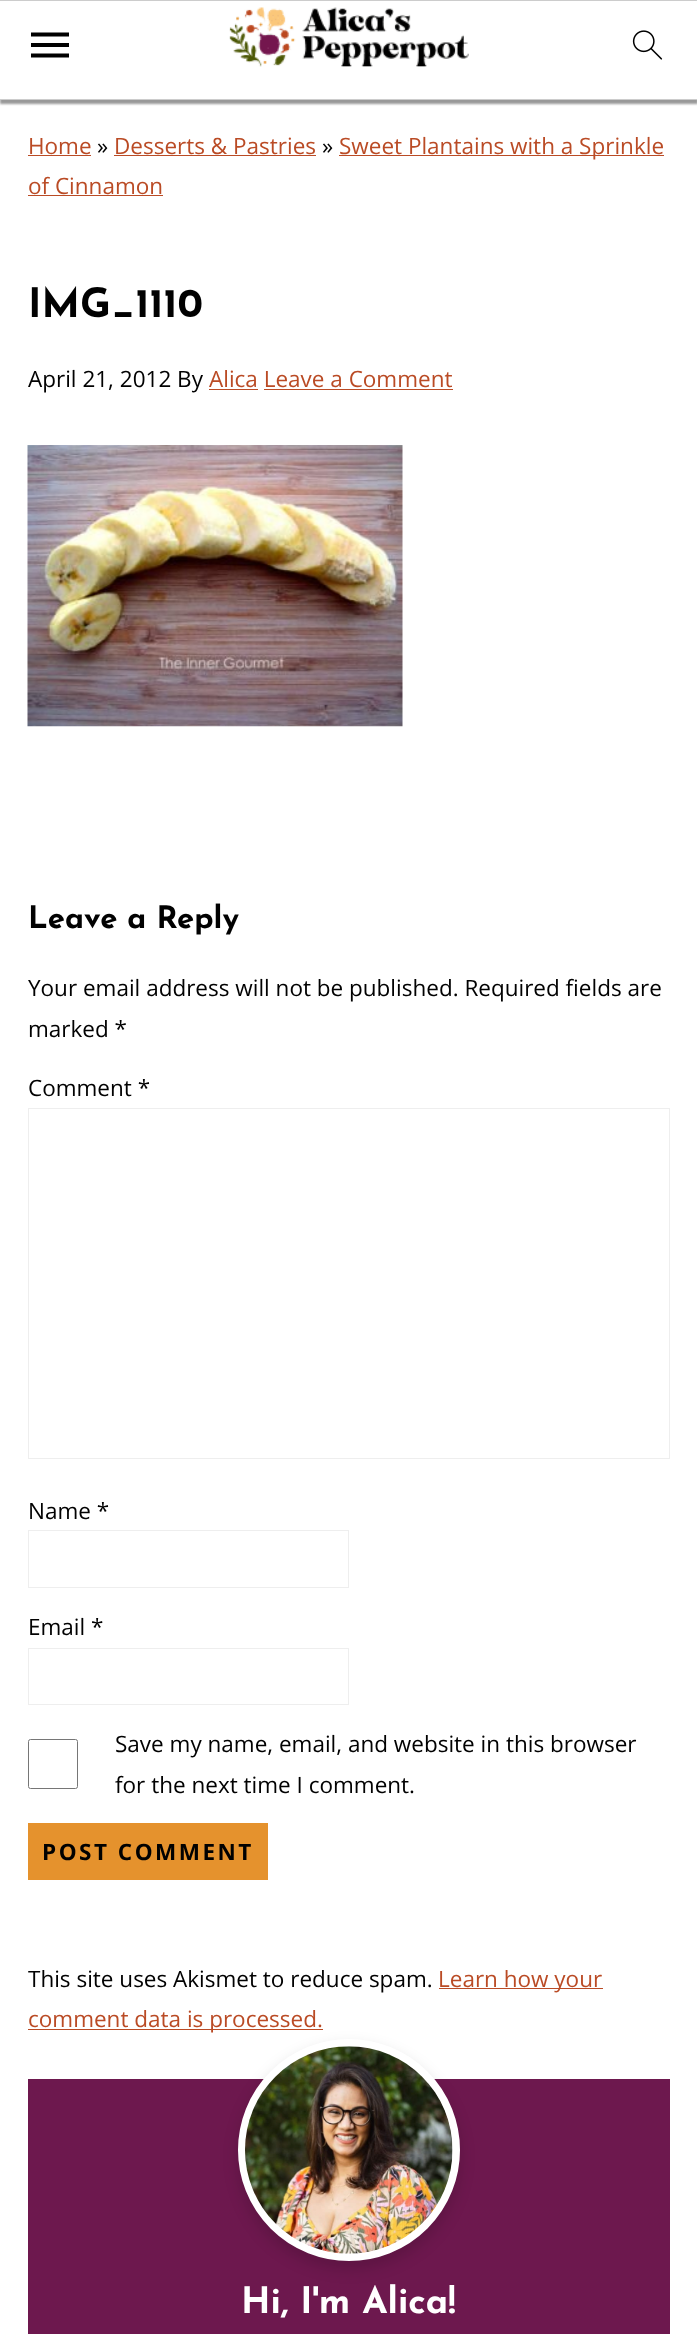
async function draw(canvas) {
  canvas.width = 697
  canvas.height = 2334
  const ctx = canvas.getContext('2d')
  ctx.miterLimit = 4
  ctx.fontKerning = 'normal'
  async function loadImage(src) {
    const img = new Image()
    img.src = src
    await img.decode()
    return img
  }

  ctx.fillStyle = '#fff'
  ctx.fillRect(0, 0, 697, 2334)
  ctx.save()
  ctx.beginPath()
  ctx.rect(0, 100, 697, 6)
  ctx.clip()
  ctx.fillStyle = '#999'
  ctx.filter = 'blur(1px)'
  ctx.beginPath()
  ctx.rect(0, 4, 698, 100)
  ctx.fill()
  ctx.filter = 'none'
  ctx.restore()
  ctx.fillStyle = '#ccc'
  ctx.fillRect(0, 0, 697, 1)
  ctx.fillRect(0, 99, 697, 1)
  ctx.fillStyle = '#000'
  ctx.beginPath()
  ctx.moveTo(31, 57.5)
  ctx.lineTo(69, 57.5)
  ctx.lineTo(69, 53.5)
  ctx.lineTo(31, 53.5)
  ctx.closePath()
  ctx.moveTo(31, 47)
  ctx.lineTo(69, 47)
  ctx.lineTo(69, 43)
  ctx.lineTo(31, 43)
  ctx.closePath()
  ctx.moveTo(31, 32.5)
  ctx.lineTo(31, 36.5)
  ctx.lineTo(69, 36.5)
  ctx.lineTo(69, 32.5)
  ctx.closePath()
  ctx.fill()
  ctx.drawImage(await loadImage('image0.png'), 229, 7, 240, 60)
  ctx.drawImage(await loadImage('image1.png'), 632, 30, 31, 30)
  ctx.font = '22.5px Open Sans'
  ctx.fillStyle = '#ba4b25'
  ctx.fillText('Home', 28, 154)
  ctx.fillRect(28, 155, 63, 1)
  ctx.fillStyle = '#010101'
  ctx.fillText('»', 97, 154)
  ctx.fillStyle = '#ba4b25'
  ctx.fillText('Desserts & Pastries', 114, 154)
  ctx.fillRect(114, 155, 202, 1)
  ctx.fillStyle = '#010101'
  ctx.fillText('»', 322, 154)
  ctx.fillStyle = '#ba4b25'
  ctx.fillRect(339, 155, 325, 1)
  ctx.fillText('Sweet Plantains with a Sprinkle', 339, 154)
  ctx.fillText('of Cinnamon', 28, 194)
  ctx.fillRect(28, 195, 135, 1)
  ctx.font = '100 40.5px Josefin Sans'
  ctx.fillStyle = '#010101'
  ctx.fillText('IMG_1110', 28, 317)
  ctx.font = '22.5px Open Sans'
  ctx.fillText('April 21, 2012 By', 28, 387)
  ctx.fillStyle = '#ba4b25'
  ctx.fillText('Alica Leave a Comment', 209, 387)
  ctx.fillRect(209, 389, 49, 1)
  ctx.fillRect(264, 389, 189, 1)
  ctx.drawImage(await loadImage('image2.png'), 27, 445, 376, 282)
  ctx.font = '100 31px Josefin Sans'
  ctx.fillStyle = '#010101'
  ctx.fillText('Leave a Reply', 28, 928)
  ctx.font = '22.5px Open Sans'
  ctx.fillText('Your email address will not be published. Required fields are', 28, 996)
  ctx.fillText('marked *', 28, 1037)
  ctx.fillText('Comment *', 28, 1096)
  ctx.strokeStyle = '#eee'
  ctx.strokeRect(28.5, 1108.5, 641, 350)
  ctx.fillText('Name *', 28, 1519)
  ctx.strokeRect(28.5, 1530.5, 320, 57)
  ctx.fillText('Email *', 28, 1635)
  ctx.strokeRect(28.5, 1648.5, 320, 56)
  ctx.beginPath()
  ctx.roundRect(28.5, 1739.5, 49, 49, 2)
  ctx.strokeStyle = '#767676'
  ctx.stroke()
  ctx.fillText('Save my name, email, and website in this browser', 115, 1752)
  ctx.fillText('for the next time I comment.', 115, 1793)
  ctx.fillStyle = '#e5922d'
  ctx.fillRect(28, 1823, 240, 57)
  ctx.letterSpacing = '2.5px'
  ctx.font = 'bold 22.5px Open Sans'
  ctx.fillStyle = '#010101'
  ctx.fillText('POST COMMENT', 42, 1860)
  ctx.letterSpacing = '0px'
  ctx.font = '22.5px Open Sans'
  ctx.fillText('This site uses Akismet to reduce spam.', 28, 1987)
  ctx.fillStyle = '#ba4b25'
  ctx.fillRect(439, 1988, 164, 1)
  ctx.fillText('Learn how your', 438, 1987)
  ctx.fillRect(28, 2029, 295, 1)
  ctx.fillText('comment data is processed.', 28, 2027)
  ctx.fillStyle = '#6d184e'
  ctx.fillRect(28, 2079, 642, 255)
  ctx.fillStyle = '#00000026'
  ctx.filter = 'blur(7.5px)'
  ctx.beginPath()
  ctx.roundRect(238, 2046, 222, 223, 111)
  ctx.fill()
  ctx.filter = 'none'
  ctx.beginPath()
  ctx.arc(349, 2150, 107, 0, 2 * Math.PI)
  ctx.strokeStyle = '#fff'
  ctx.lineWidth = 8
  ctx.stroke()
  ctx.drawImage(await loadImage('image3.png'), 245, 2046, 208, 208)
  ctx.font = '100 36.5px Josefin Sans'
  ctx.fillStyle = '#fff'
  ctx.fillText('Hi, I\'m Alica!', 241, 2313)
}

draw(document.querySelector('canvas'))
